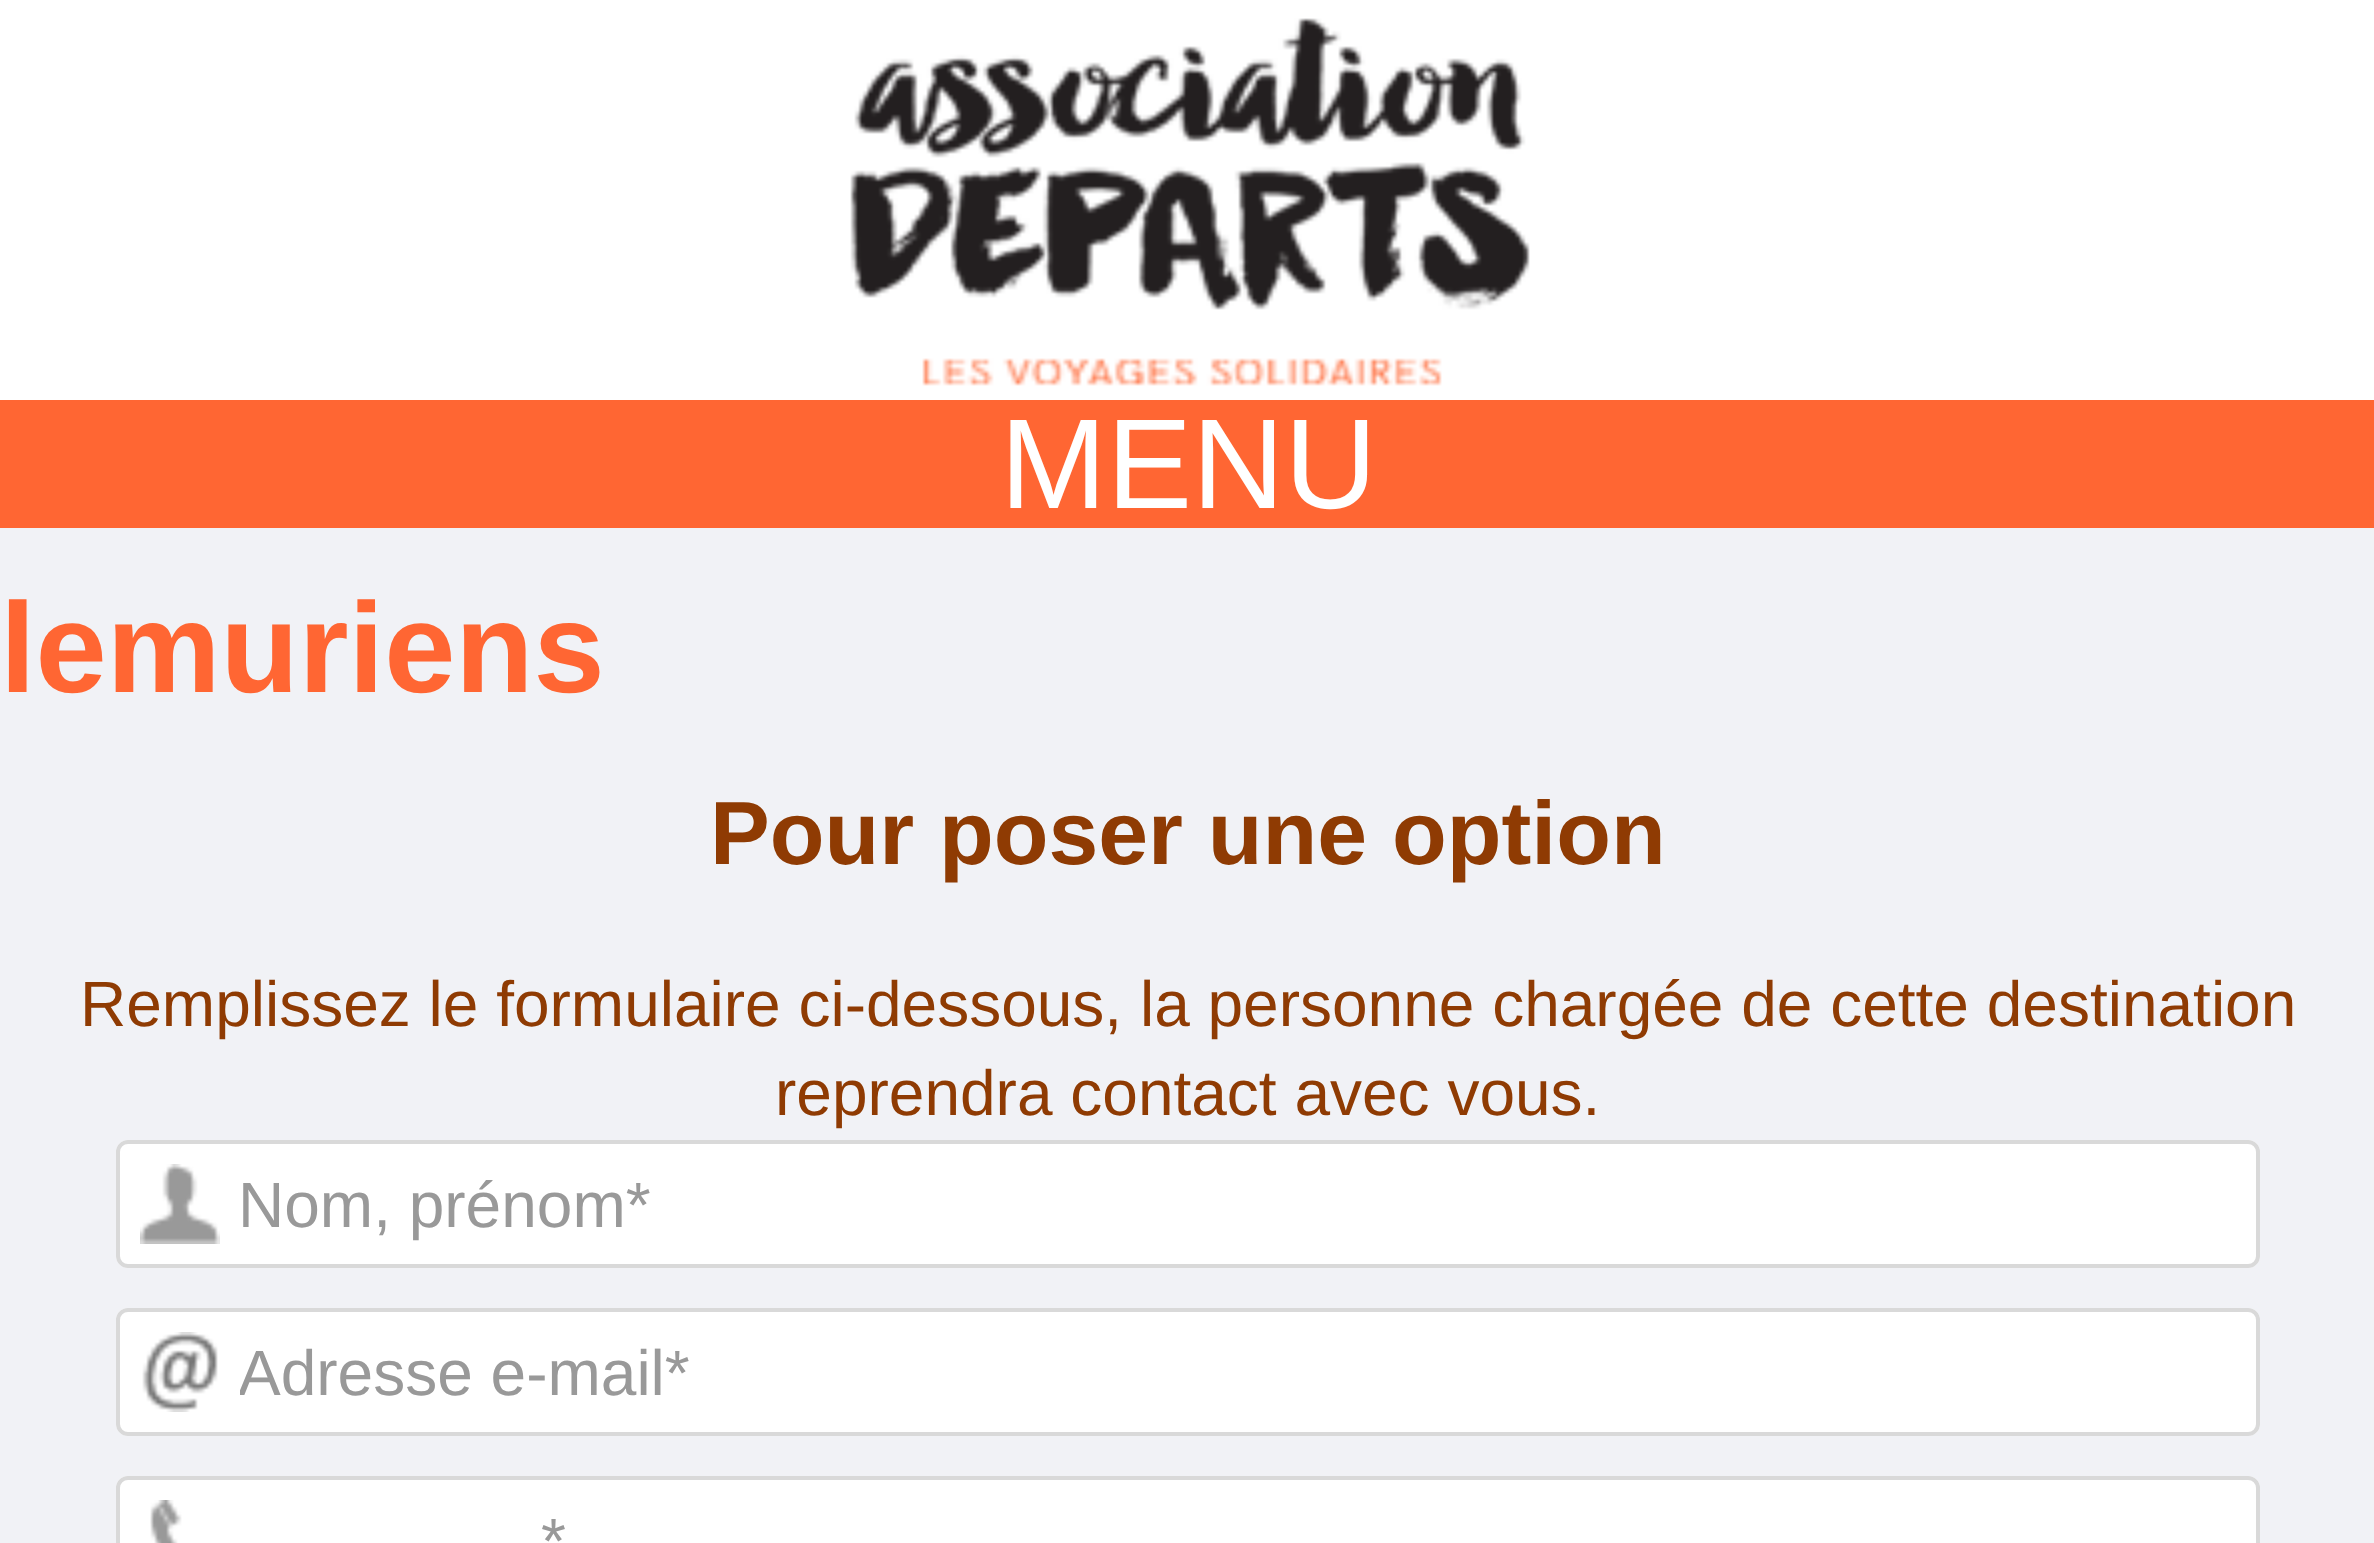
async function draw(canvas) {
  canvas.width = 2374
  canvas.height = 1543
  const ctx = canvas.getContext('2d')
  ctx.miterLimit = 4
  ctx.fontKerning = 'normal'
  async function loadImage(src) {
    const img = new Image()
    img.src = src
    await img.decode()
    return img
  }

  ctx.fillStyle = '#fff'
  ctx.fillRect(0, 0, 2374, 1543)
  ctx.fillStyle = '#f1f2f6'
  ctx.fillRect(0, 528, 2374, 1015)
  ctx.drawImage(await loadImage('image0.png'), 850, 18, 680, 368)
  ctx.fillStyle = '#f63'
  ctx.fillRect(0, 400, 2374, 128)
  ctx.font = '128px Liberation Sans'
  ctx.fillStyle = '#fff'
  ctx.fillText('MENU', 1000, 508)
  ctx.font = 'bold 128px Liberation Sans'
  ctx.fillStyle = '#f63'
  ctx.fillText('lemuriens', 0, 692)
  ctx.font = 'bold 89.6px Liberation Sans'
  ctx.fillStyle = '#8f3b03'
  ctx.fillText('Pour poser une option', 710, 864)
  ctx.font = '64px Liberation Sans'
  ctx.fillText('Remplissez le formulaire ci-dessous, la personne chargée de cette destination', 80, 1026)
  ctx.fillText('reprendra contact avec vous.', 775, 1115)
  ctx.fillStyle = '#fff'
  ctx.beginPath()
  ctx.roundRect(116, 1140, 2144, 128, 12)
  ctx.fill()
  ctx.drawImage(await loadImage('image1.png'), 140, 1164, 80, 80)
  ctx.beginPath()
  ctx.roundRect(118, 1142, 2140, 124, 10)
  ctx.strokeStyle = '#d9d9d9'
  ctx.lineWidth = 4
  ctx.stroke()
  ctx.fillStyle = '#999'
  ctx.fillText('Nom, prénom*', 238, 1227)
  ctx.fillStyle = '#fff'
  ctx.beginPath()
  ctx.roundRect(116, 1308, 2144, 128, 12)
  ctx.fill()
  ctx.drawImage(await loadImage('image2.png'), 142, 1332, 76, 80)
  ctx.beginPath()
  ctx.roundRect(118, 1310, 2140, 124, 10)
  ctx.stroke()
  ctx.save()
  ctx.beginPath()
  ctx.rect(240, 1340, 2016, 72)
  ctx.clip()
  ctx.fillStyle = '#999'
  ctx.fillText('Adresse e-mail*', 238, 1395)
  ctx.restore()
  ctx.beginPath()
  ctx.roundRect(116, 1476, 2144, 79, 12)
  ctx.fill()
  ctx.drawImage(await loadImage('image3.png'), 150, 1500, 32, 43)
  ctx.beginPath()
  ctx.roundRect(118, 1478, 2140, 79, 10)
  ctx.stroke()
  ctx.fillStyle = '#999'
  ctx.fillText('*', 541, 1563)
}

draw(document.querySelector('canvas'))
